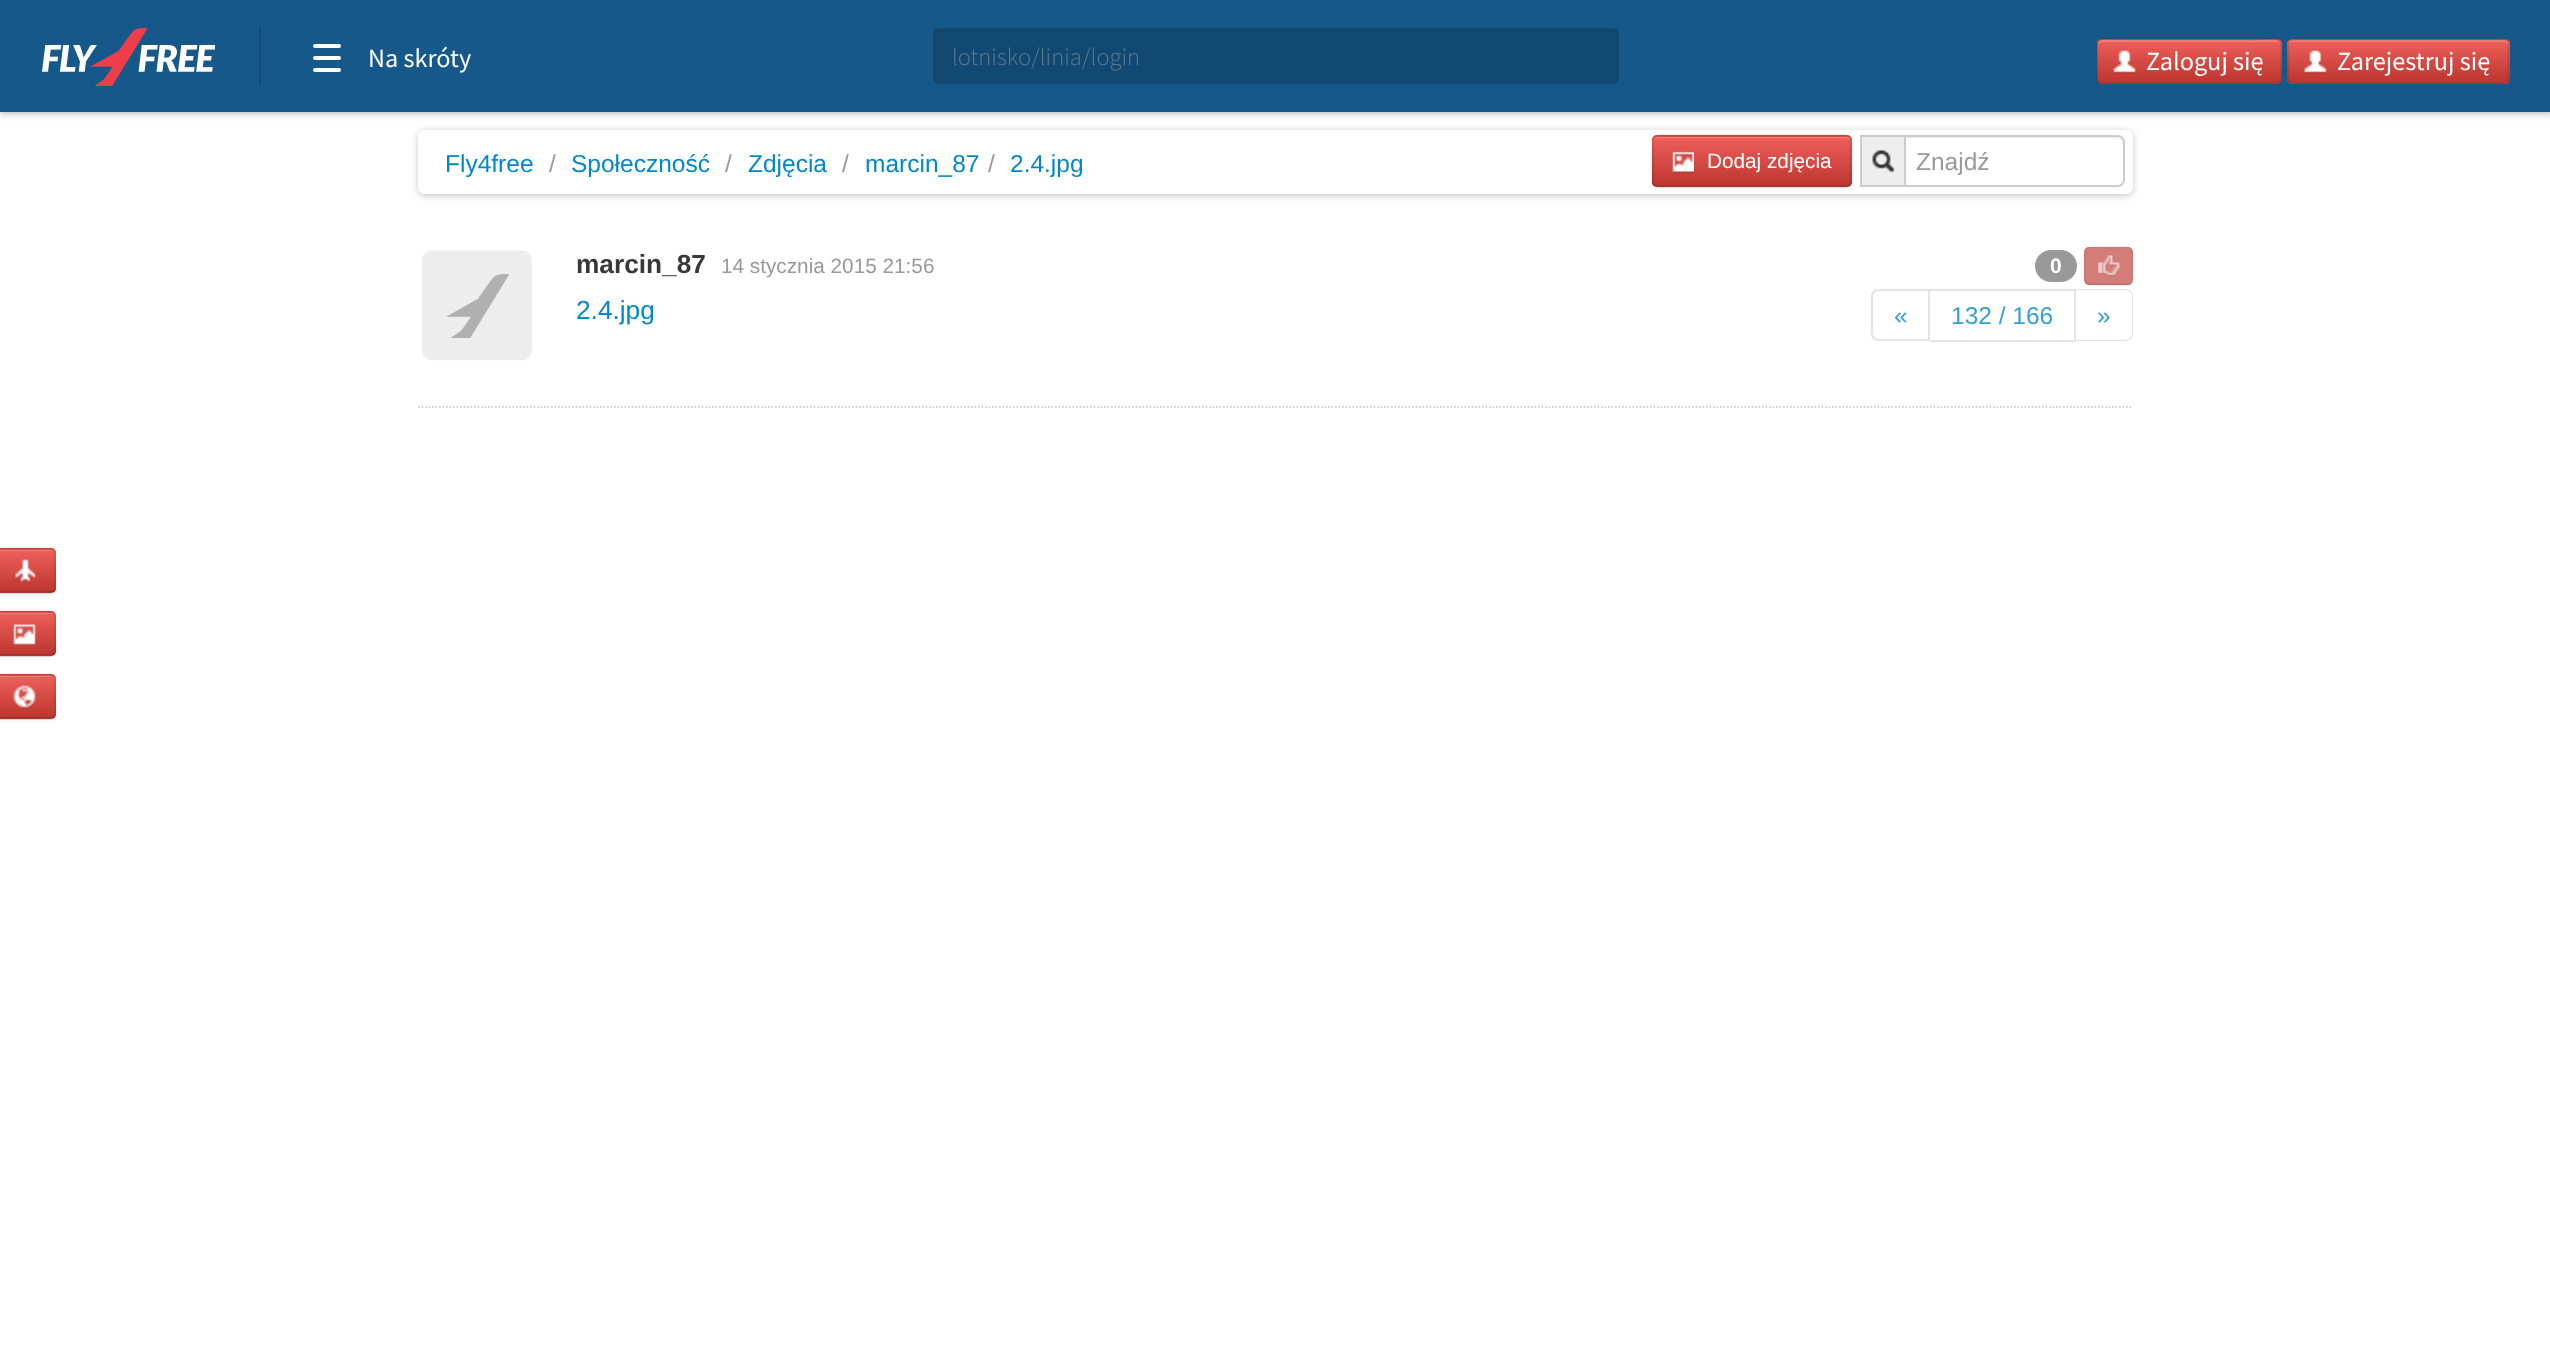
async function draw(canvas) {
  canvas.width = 2550
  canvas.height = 1369
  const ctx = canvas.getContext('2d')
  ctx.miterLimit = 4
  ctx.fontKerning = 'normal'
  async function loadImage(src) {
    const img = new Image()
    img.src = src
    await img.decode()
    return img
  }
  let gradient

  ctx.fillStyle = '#fff'
  ctx.fillRect(0, 0, 2550, 1369)
  ctx.fillStyle = '#00000066'
  ctx.filter = 'blur(4.5px)'
  ctx.beginPath()
  ctx.rect(0, 0, 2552, 112)
  ctx.fill()
  ctx.filter = 'none'
  ctx.fillStyle = '#17588a'
  ctx.fillRect(0, 0, 2550, 112)
  ctx.drawImage(await loadImage('image0.png'), 42, 28, 173, 58)
  ctx.fillStyle = '#134a74'
  ctx.fillRect(259, 28, 2, 56)
  ctx.fillStyle = '#fff'
  ctx.beginPath()
  ctx.roundRect(313, 68, 28, 4, 2)
  ctx.fill()
  ctx.beginPath()
  ctx.roundRect(313, 44, 28, 4, 2)
  ctx.fill()
  ctx.beginPath()
  ctx.roundRect(313, 56, 28, 4, 2)
  ctx.fill()
  ctx.font = '26.25px Source Sans Pro'
  ctx.fillText('Na skróty', 368, 67)
  ctx.fillStyle = '#124973'
  ctx.beginPath()
  ctx.roundRect(933, 28, 686, 56, 5)
  ctx.fill()
  ctx.fillStyle = '#11446a'
  ctx.beginPath()
  ctx.moveTo(938, 32)
  ctx.lineTo(1614, 32)
  ctx.bezierCurveTo(1615, 32, 1617, 33, 1617, 35)
  ctx.lineTo(1617, 34)
  ctx.bezierCurveTo(1617, 32, 1615, 30, 1613, 30)
  ctx.lineTo(939, 30)
  ctx.bezierCurveTo(937, 30, 936, 31, 935, 33)
  ctx.closePath()
  ctx.fill()
  ctx.font = '300 24.5px Source Sans Pro'
  ctx.fillStyle = '#5e7a8f'
  ctx.fillText('lotnisko/linia/login', 952, 65)
  ctx.fillStyle = '#da4f49'
  ctx.beginPath()
  ctx.roundRect(2097, 39, 185, 45, 5)
  ctx.fill()
  ctx.save()
  ctx.beginPath()
  ctx.roundRect(2097, 39, 185, 45, 5)
  ctx.clip()
  gradient = ctx.createLinearGradient(2189, 40, 2189, 82)
  gradient.addColorStop(0, '#ee5f5b')
  gradient.addColorStop(1, '#bd362f')
  ctx.fillStyle = gradient
  ctx.fillRect(2097, 40, 185, 42)
  ctx.restore()
  ctx.fillStyle = '#ffffff33'
  ctx.beginPath()
  ctx.moveTo(2102, 42)
  ctx.lineTo(2277, 42)
  ctx.bezierCurveTo(2279, 42, 2280, 44, 2280, 46)
  ctx.lineTo(2280, 44)
  ctx.bezierCurveTo(2280, 42, 2278, 40, 2276, 40)
  ctx.lineTo(2102, 40)
  ctx.bezierCurveTo(2100, 40, 2098, 42, 2098, 44)
  ctx.lineTo(2098, 46)
  ctx.bezierCurveTo(2098, 44, 2100, 42, 2102, 42)
  ctx.closePath()
  ctx.fill()
  ctx.beginPath()
  ctx.moveTo(2280, 82)
  ctx.bezierCurveTo(2279, 82.5, 2278, 83, 2277, 83)
  ctx.lineTo(2102, 83)
  ctx.bezierCurveTo(2100.5, 83, 2099.5, 82.5, 2098.5, 82)
  ctx.strokeStyle = '#00000040'
  ctx.lineWidth = 1.8
  ctx.stroke()
  ctx.beginPath()
  ctx.moveTo(2098.5, 82)
  ctx.bezierCurveTo(2096, 79, 2097.5, 70, 2097.5, 67)
  ctx.bezierCurveTo(2097.5, 32, 2091.5, 39.5, 2131, 39.5)
  ctx.lineTo(2247.5, 39.5)
  ctx.bezierCurveTo(2287, 39.5, 2281, 32, 2281, 67)
  ctx.bezierCurveTo(2281, 70, 2282.5, 79, 2280, 82)
  ctx.strokeStyle = '#0000001a'
  ctx.stroke()
  ctx.drawImage(await loadImage('image1.png'), 2113, 50, 24, 24)
  ctx.font = '26.25px Source Sans Pro'
  ctx.fillStyle = '#fff'
  ctx.fillText('Zaloguj się', 2146, 70)
  ctx.fillStyle = '#da4f49'
  ctx.beginPath()
  ctx.roundRect(2287, 39, 223, 45, 5)
  ctx.fill()
  ctx.save()
  ctx.beginPath()
  ctx.roundRect(2287, 39, 223, 45, 5)
  ctx.clip()
  gradient = ctx.createLinearGradient(2398, 40, 2398, 82)
  gradient.addColorStop(0, '#ee5f5b')
  gradient.addColorStop(1, '#bd362f')
  ctx.fillStyle = gradient
  ctx.fillRect(2287, 40, 223, 42)
  ctx.restore()
  ctx.fillStyle = '#ffffff33'
  ctx.beginPath()
  ctx.moveTo(2292, 42)
  ctx.lineTo(2504, 42)
  ctx.bezierCurveTo(2506, 42, 2508, 44, 2508, 46)
  ctx.bezierCurveTo(2508, 43, 2508, 41, 2505, 40)
  ctx.lineTo(2292, 40)
  ctx.bezierCurveTo(2289, 41, 2289, 43, 2289, 46)
  ctx.bezierCurveTo(2289, 44, 2291, 42, 2292, 42)
  ctx.closePath()
  ctx.fill()
  ctx.beginPath()
  ctx.moveTo(2507.5, 82)
  ctx.lineTo(2504.5, 83)
  ctx.lineTo(2328, 83)
  ctx.lineTo(2292.5, 83)
  ctx.lineTo(2289.5, 82)
  ctx.strokeStyle = '#00000040'
  ctx.stroke()
  ctx.beginPath()
  ctx.moveTo(2289.5, 82)
  ctx.bezierCurveTo(2288.5, 81, 2288, 80, 2288, 79)
  ctx.lineTo(2288, 44)
  ctx.bezierCurveTo(2288, 42.5, 2288.5, 41.5, 2289.5, 40.5)
  ctx.bezierCurveTo(2290, 40, 2291.5, 39.5, 2292.5, 39.5)
  ctx.lineTo(2504, 39.5)
  ctx.bezierCurveTo(2505.5, 39.5, 2506.5, 40, 2507.5, 40.5)
  ctx.bezierCurveTo(2508, 41.5, 2508.5, 42.5, 2508.5, 44)
  ctx.lineTo(2508.5, 79)
  ctx.bezierCurveTo(2508.5, 80, 2508, 81, 2507.5, 82)
  ctx.strokeStyle = '#0000001a'
  ctx.stroke()
  ctx.drawImage(await loadImage('image2.png'), 2304, 50, 23, 24)
  ctx.fillStyle = '#fff'
  ctx.fillText('Zarejestruj się', 2337, 70)
  ctx.save()
  ctx.beginPath()
  ctx.moveTo(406, 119)
  ctx.lineTo(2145, 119)
  ctx.lineTo(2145, 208)
  ctx.lineTo(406, 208)
  ctx.closePath()
  ctx.moveTo(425, 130)
  ctx.lineTo(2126, 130)
  ctx.bezierCurveTo(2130, 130, 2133, 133, 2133, 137)
  ctx.lineTo(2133, 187)
  ctx.bezierCurveTo(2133, 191, 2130, 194, 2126, 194)
  ctx.lineTo(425, 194)
  ctx.bezierCurveTo(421, 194, 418, 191, 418, 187)
  ctx.lineTo(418, 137)
  ctx.bezierCurveTo(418, 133, 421, 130, 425, 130)
  ctx.closePath()
  ctx.clip('evenodd')
  ctx.fillStyle = '#00000038'
  ctx.filter = 'blur(3.5px)'
  ctx.beginPath()
  ctx.roundRect(418, 131, 1715, 65, 7)
  ctx.fill()
  ctx.filter = 'none'
  ctx.restore()
  ctx.font = '24.5px Liberation Sans'
  ctx.fillStyle = '#08c'
  ctx.fillText('Fly4free', 445, 172)
  ctx.fillStyle = '#999'
  ctx.fillText('/', 549, 172)
  ctx.fillStyle = '#08c'
  ctx.fillText('Społeczność', 571, 172)
  ctx.fillStyle = '#999'
  ctx.fillText('/', 725, 172)
  ctx.fillStyle = '#08c'
  ctx.fillText('Zdjęcia', 748, 172)
  ctx.fillStyle = '#999'
  ctx.fillText('/', 842, 172)
  ctx.fillStyle = '#08c'
  ctx.fillText('marcin_87', 865, 172)
  ctx.fillStyle = '#999'
  ctx.fillText('/', 988, 172)
  ctx.fillStyle = '#08c'
  ctx.fillText('2.4.jpg', 1010, 172)
  ctx.fillStyle = '#0000000d'
  ctx.filter = 'blur(2px)'
  ctx.beginPath()
  ctx.roundRect(1652, 137, 200, 52, 5)
  ctx.fill()
  ctx.filter = 'none'
  ctx.fillStyle = '#da4f49'
  ctx.beginPath()
  ctx.roundRect(1652, 135, 200, 52, 5)
  ctx.fill()
  ctx.save()
  ctx.beginPath()
  ctx.roundRect(1652, 135, 200, 52, 5)
  ctx.clip()
  gradient = ctx.createLinearGradient(1752, 137, 1752, 186)
  gradient.addColorStop(0, '#ee5f5b')
  gradient.addColorStop(1, '#bd362f')
  ctx.fillStyle = gradient
  ctx.fillRect(1652, 137, 200, 49)
  ctx.restore()
  ctx.fillStyle = '#f17f7c'
  ctx.beginPath()
  ctx.moveTo(1657, 138)
  ctx.lineTo(1846, 138)
  ctx.bezierCurveTo(1848, 138, 1850, 140, 1850, 142)
  ctx.lineTo(1850, 141)
  ctx.bezierCurveTo(1850, 139, 1848, 137, 1846, 137)
  ctx.lineTo(1658, 137)
  ctx.bezierCurveTo(1656, 137, 1654, 139, 1654, 141)
  ctx.lineTo(1654, 142)
  ctx.bezierCurveTo(1654, 140, 1655, 138, 1657, 138)
  ctx.closePath()
  ctx.fill()
  ctx.beginPath()
  ctx.moveTo(1849.5, 185)
  ctx.bezierCurveTo(1848.5, 186, 1847.5, 186.5, 1846, 186.5)
  ctx.lineTo(1657, 186.5)
  ctx.bezierCurveTo(1656, 186.5, 1655, 186, 1654, 185)
  ctx.strokeStyle = '#00000040'
  ctx.stroke()
  ctx.beginPath()
  ctx.moveTo(1654, 185)
  ctx.bezierCurveTo(1653.5, 184.5, 1653, 183, 1653, 182)
  ctx.lineTo(1653, 140)
  ctx.bezierCurveTo(1653, 139, 1653.5, 137.5, 1654, 137)
  ctx.bezierCurveTo(1655, 136, 1656, 135.5, 1657, 135.5)
  ctx.lineTo(1846, 135.5)
  ctx.bezierCurveTo(1847.5, 135.5, 1848.5, 136, 1849.5, 137)
  ctx.bezierCurveTo(1850, 137.5, 1850.5, 139, 1850.5, 140)
  ctx.lineTo(1850.5, 182)
  ctx.bezierCurveTo(1850.5, 183, 1850, 184.5, 1849.5, 185)
  ctx.strokeStyle = '#0000001a'
  ctx.stroke()
  ctx.drawImage(await loadImage('image3.png'), 1672, 151, 22, 23)
  ctx.font = '20.75px Liberation Sans'
  ctx.fillStyle = '#fff'
  ctx.fillText('Dodaj zdjęcia', 1707, 168)
  ctx.fillStyle = '#eee'
  ctx.beginPath()
  ctx.rect(1861, 136, 44, 50)
  ctx.fill()
  ctx.strokeStyle = '#ccc'
  ctx.lineWidth = 2
  ctx.stroke()
  ctx.drawImage(await loadImage('image4.png'), 1872, 150, 24, 23)
  ctx.fillStyle = '#fff'
  ctx.beginPath()
  ctx.roundRect(1904, 135, 221, 52, [0, 7, 7, 0])
  ctx.fill()
  ctx.fillStyle = '#ececec'
  ctx.beginPath()
  ctx.moveTo(1906, 138)
  ctx.lineTo(2118, 138)
  ctx.bezierCurveTo(2120, 138, 2123, 141, 2123, 144)
  ctx.lineTo(2123, 142)
  ctx.bezierCurveTo(2123, 139, 2121, 137, 2118, 137)
  ctx.lineTo(1906, 137)
  ctx.closePath()
  ctx.fill()
  ctx.beginPath()
  ctx.roundRect(1905, 136, 219, 50, [0, 6, 6, 0])
  ctx.stroke()
  ctx.font = '24.5px Liberation Sans'
  ctx.fillStyle = '#999'
  ctx.fillText('Znajdź', 1916, 170)
  ctx.beginPath()
  ctx.moveTo(418, 407)
  ctx.lineTo(2133, 407)
  ctx.strokeStyle = '#d3d5d0'
  ctx.lineWidth = 1.8
  ctx.setLineDash([1.75, 1.75])
  ctx.stroke()
  ctx.drawImage(await loadImage('image5.png'), 422, 250, 110, 111)
  ctx.font = 'bold 26.25px Liberation Sans'
  ctx.fillStyle = '#383838'
  ctx.fillText('marcin_87', 576, 273)
  ctx.font = '20.75px Liberation Sans'
  ctx.fillStyle = '#999'
  ctx.fillText('14 stycznia 2015 21:56', 721, 273)
  ctx.beginPath()
  ctx.roundRect(2035, 250, 42, 32, 16)
  ctx.fill()
  ctx.font = 'bold 21px Liberation Sans'
  ctx.fillStyle = '#fff'
  ctx.fillText('0', 2050, 273)
  ctx.fillStyle = '#d47c78'
  ctx.beginPath()
  ctx.roundRect(2084, 247, 49, 38, 5)
  ctx.fill()
  ctx.beginPath()
  ctx.moveTo(2131, 283)
  ctx.bezierCurveTo(2130.5, 284, 2129, 284.5, 2128, 284.5)
  ctx.lineTo(2089.5, 284.5)
  ctx.bezierCurveTo(2088.5, 284.5, 2087, 284, 2086.5, 283)
  ctx.strokeStyle = '#59595940'
  ctx.setLineDash([])
  ctx.stroke()
  ctx.beginPath()
  ctx.moveTo(2086.5, 283)
  ctx.bezierCurveTo(2084.5, 281, 2085, 277.5, 2085, 275.5)
  ctx.lineTo(2085, 266)
  ctx.bezierCurveTo(2085, 243, 2083, 247.5, 2109, 247.5)
  ctx.bezierCurveTo(2134.5, 247.5, 2132.5, 243, 2132.5, 266)
  ctx.lineTo(2132.5, 275.5)
  ctx.bezierCurveTo(2132.5, 277.5, 2133, 281, 2131, 283)
  ctx.strokeStyle = '#5959591a'
  ctx.stroke()
  ctx.drawImage(await loadImage('image6.png'), 2097, 255, 23, 22)
  ctx.font = '26.25px Liberation Sans'
  ctx.fillStyle = '#08c'
  ctx.fillText('2.4.jpg', 576, 319)
  ctx.beginPath()
  ctx.roundRect(1872, 290, 57, 50, [6, 0, 0, 6])
  ctx.strokeStyle = '#e4e4e4'
  ctx.lineWidth = 2
  ctx.stroke()
  ctx.font = '24.5px Liberation Sans'
  ctx.fillStyle = '#33a0d6'
  ctx.fillText('«', 1894, 324)
  ctx.fillStyle = '#e4e4e4'
  ctx.fillRect(1930, 289, 146, 2)
  ctx.fillRect(2074, 289, 2, 52)
  ctx.fillRect(1930, 340, 146, 2)
  ctx.fillStyle = '#33a0d6'
  ctx.fillText('132 / 166', 1951, 324)
  ctx.fillStyle = '#e4e4e4'
  ctx.beginPath()
  ctx.moveTo(2076, 289)
  ctx.lineTo(2126, 289)
  ctx.bezierCurveTo(2130, 289, 2133, 292, 2133, 296)
  ctx.lineTo(2133, 334)
  ctx.bezierCurveTo(2133, 338, 2130, 341, 2126, 341)
  ctx.lineTo(2076, 341)
  ctx.closePath()
  ctx.moveTo(2076, 290)
  ctx.lineTo(2126, 290)
  ctx.bezierCurveTo(2129, 290, 2132, 293, 2132, 296)
  ctx.lineTo(2132, 334)
  ctx.bezierCurveTo(2132, 337, 2129, 340, 2126, 340)
  ctx.lineTo(2076, 340)
  ctx.closePath()
  ctx.fill('evenodd')
  ctx.fillStyle = '#33a0d6'
  ctx.fillText('»', 2097, 324)
  ctx.fillStyle = '#0000000d'
  ctx.filter = 'blur(2px)'
  ctx.beginPath()
  ctx.roundRect(-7, 550, 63, 45, 5)
  ctx.fill()
  ctx.filter = 'none'
  ctx.fillStyle = '#da4f49'
  ctx.beginPath()
  ctx.roundRect(-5, 548, 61, 45, 5)
  ctx.fill()
  ctx.save()
  ctx.beginPath()
  ctx.roundRect(-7, 548, 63, 45, 5)
  ctx.clip()
  gradient = ctx.createLinearGradient(24, 550, 25, 592)
  gradient.addColorStop(0, '#ee5f5b')
  gradient.addColorStop(1, '#bd362f')
  ctx.fillStyle = gradient
  ctx.fillRect(0, 550, 56, 42)
  ctx.restore()
  ctx.fillStyle = '#f17f7b'
  ctx.beginPath()
  ctx.moveTo(-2, 551)
  ctx.lineTo(51, 551)
  ctx.bezierCurveTo(53, 551, 54, 553, 54, 555)
  ctx.bezierCurveTo(54, 548, 47, 550, 42, 550)
  ctx.lineTo(8, 550)
  ctx.bezierCurveTo(2, 550, -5, 548, -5, 555)
  ctx.bezierCurveTo(-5, 553, -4, 551, -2, 551)
  ctx.closePath()
  ctx.fill()
  ctx.beginPath()
  ctx.moveTo(54, 591)
  ctx.bezierCurveTo(53, 592, 52, 592.5, 51, 592.5)
  ctx.lineTo(-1.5, 592.5)
  ctx.bezierCurveTo(-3, 592.5, -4, 592, -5, 591)
  ctx.strokeStyle = '#00000040'
  ctx.lineWidth = 1.8
  ctx.stroke()
  ctx.beginPath()
  ctx.moveTo(-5, 591)
  ctx.bezierCurveTo(-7, 589, -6, 584.5, -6, 582)
  ctx.lineTo(-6, 559)
  ctx.bezierCurveTo(-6, 547, -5, 548.5, 7, 548.5)
  ctx.lineTo(42, 548.5)
  ctx.bezierCurveTo(54, 548.5, 55, 547, 55, 559)
  ctx.lineTo(55, 582)
  ctx.bezierCurveTo(55, 584.5, 56, 589, 54, 591)
  ctx.strokeStyle = '#0000001a'
  ctx.stroke()
  ctx.drawImage(await loadImage('image7.png'), 15, 559, 22, 24)
  ctx.fillStyle = '#0000000d'
  ctx.filter = 'blur(2px)'
  ctx.beginPath()
  ctx.roundRect(-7, 613, 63, 45, 5)
  ctx.fill()
  ctx.filter = 'none'
  ctx.fillStyle = '#da4f49'
  ctx.beginPath()
  ctx.roundRect(-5, 611, 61, 45, 5)
  ctx.fill()
  ctx.save()
  ctx.beginPath()
  ctx.roundRect(-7, 611, 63, 45, 5)
  ctx.clip()
  gradient = ctx.createLinearGradient(24, 613, 25, 655)
  gradient.addColorStop(0, '#ee5f5b')
  gradient.addColorStop(1, '#bd362f')
  ctx.fillStyle = gradient
  ctx.fillRect(0, 613, 56, 42)
  ctx.restore()
  ctx.fillStyle = '#f17f7b'
  ctx.beginPath()
  ctx.moveTo(-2, 614)
  ctx.lineTo(51, 614)
  ctx.bezierCurveTo(53, 614, 54, 616, 54, 618)
  ctx.bezierCurveTo(54, 611, 47, 613, 42, 613)
  ctx.lineTo(8, 613)
  ctx.bezierCurveTo(2, 613, -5, 611, -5, 618)
  ctx.bezierCurveTo(-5, 616, -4, 614, -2, 614)
  ctx.closePath()
  ctx.fill()
  ctx.beginPath()
  ctx.moveTo(54, 654)
  ctx.bezierCurveTo(53, 655, 52, 655.5, 51, 655.5)
  ctx.lineTo(-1.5, 655.5)
  ctx.bezierCurveTo(-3, 655.5, -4, 655, -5, 654)
  ctx.strokeStyle = '#00000040'
  ctx.stroke()
  ctx.beginPath()
  ctx.moveTo(-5, 654)
  ctx.bezierCurveTo(-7, 652, -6, 647.5, -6, 645)
  ctx.lineTo(-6, 622)
  ctx.bezierCurveTo(-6, 610, -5, 611.5, 7, 611.5)
  ctx.lineTo(42, 611.5)
  ctx.bezierCurveTo(54, 611.5, 55, 610, 55, 622)
  ctx.lineTo(55, 645)
  ctx.bezierCurveTo(55, 647.5, 56, 652, 54, 654)
  ctx.strokeStyle = '#0000001a'
  ctx.stroke()
  ctx.drawImage(await loadImage('image8.png'), 13, 624, 23, 22)
  ctx.fillStyle = '#0000000d'
  ctx.filter = 'blur(2px)'
  ctx.beginPath()
  ctx.roundRect(-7, 676, 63, 45, 5)
  ctx.fill()
  ctx.filter = 'none'
  ctx.fillStyle = '#da4f49'
  ctx.beginPath()
  ctx.roundRect(-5, 674, 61, 45, 5)
  ctx.fill()
  ctx.save()
  ctx.beginPath()
  ctx.roundRect(-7, 674, 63, 45, 5)
  ctx.clip()
  gradient = ctx.createLinearGradient(24, 676, 25, 718)
  gradient.addColorStop(0, '#ee5f5b')
  gradient.addColorStop(1, '#bd362f')
  ctx.fillStyle = gradient
  ctx.fillRect(0, 676, 56, 42)
  ctx.restore()
  ctx.fillStyle = '#f17f7b'
  ctx.beginPath()
  ctx.moveTo(-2, 677)
  ctx.lineTo(51, 677)
  ctx.bezierCurveTo(53, 677, 54, 679, 54, 681)
  ctx.bezierCurveTo(54, 674, 47, 676, 42, 676)
  ctx.lineTo(8, 676)
  ctx.bezierCurveTo(2, 676, -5, 674, -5, 681)
  ctx.bezierCurveTo(-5, 679, -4, 677, -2, 677)
  ctx.closePath()
  ctx.fill()
  ctx.beginPath()
  ctx.moveTo(54, 717)
  ctx.bezierCurveTo(53, 718, 52, 718.5, 51, 718.5)
  ctx.lineTo(-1.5, 718.5)
  ctx.bezierCurveTo(-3, 718.5, -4, 718, -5, 717)
  ctx.strokeStyle = '#00000040'
  ctx.stroke()
  ctx.beginPath()
  ctx.moveTo(-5, 717)
  ctx.bezierCurveTo(-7, 715, -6, 710.5, -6, 708)
  ctx.lineTo(-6, 685)
  ctx.bezierCurveTo(-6, 673, -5, 674.5, 7, 674.5)
  ctx.lineTo(42, 674.5)
  ctx.bezierCurveTo(54, 674.5, 55, 673, 55, 685)
  ctx.lineTo(55, 708)
  ctx.bezierCurveTo(55, 710.5, 56, 715, 54, 717)
  ctx.strokeStyle = '#0000001a'
  ctx.stroke()
  ctx.drawImage(await loadImage('image9.png'), 13, 685, 24, 24)
}

draw(document.querySelector('canvas'))
